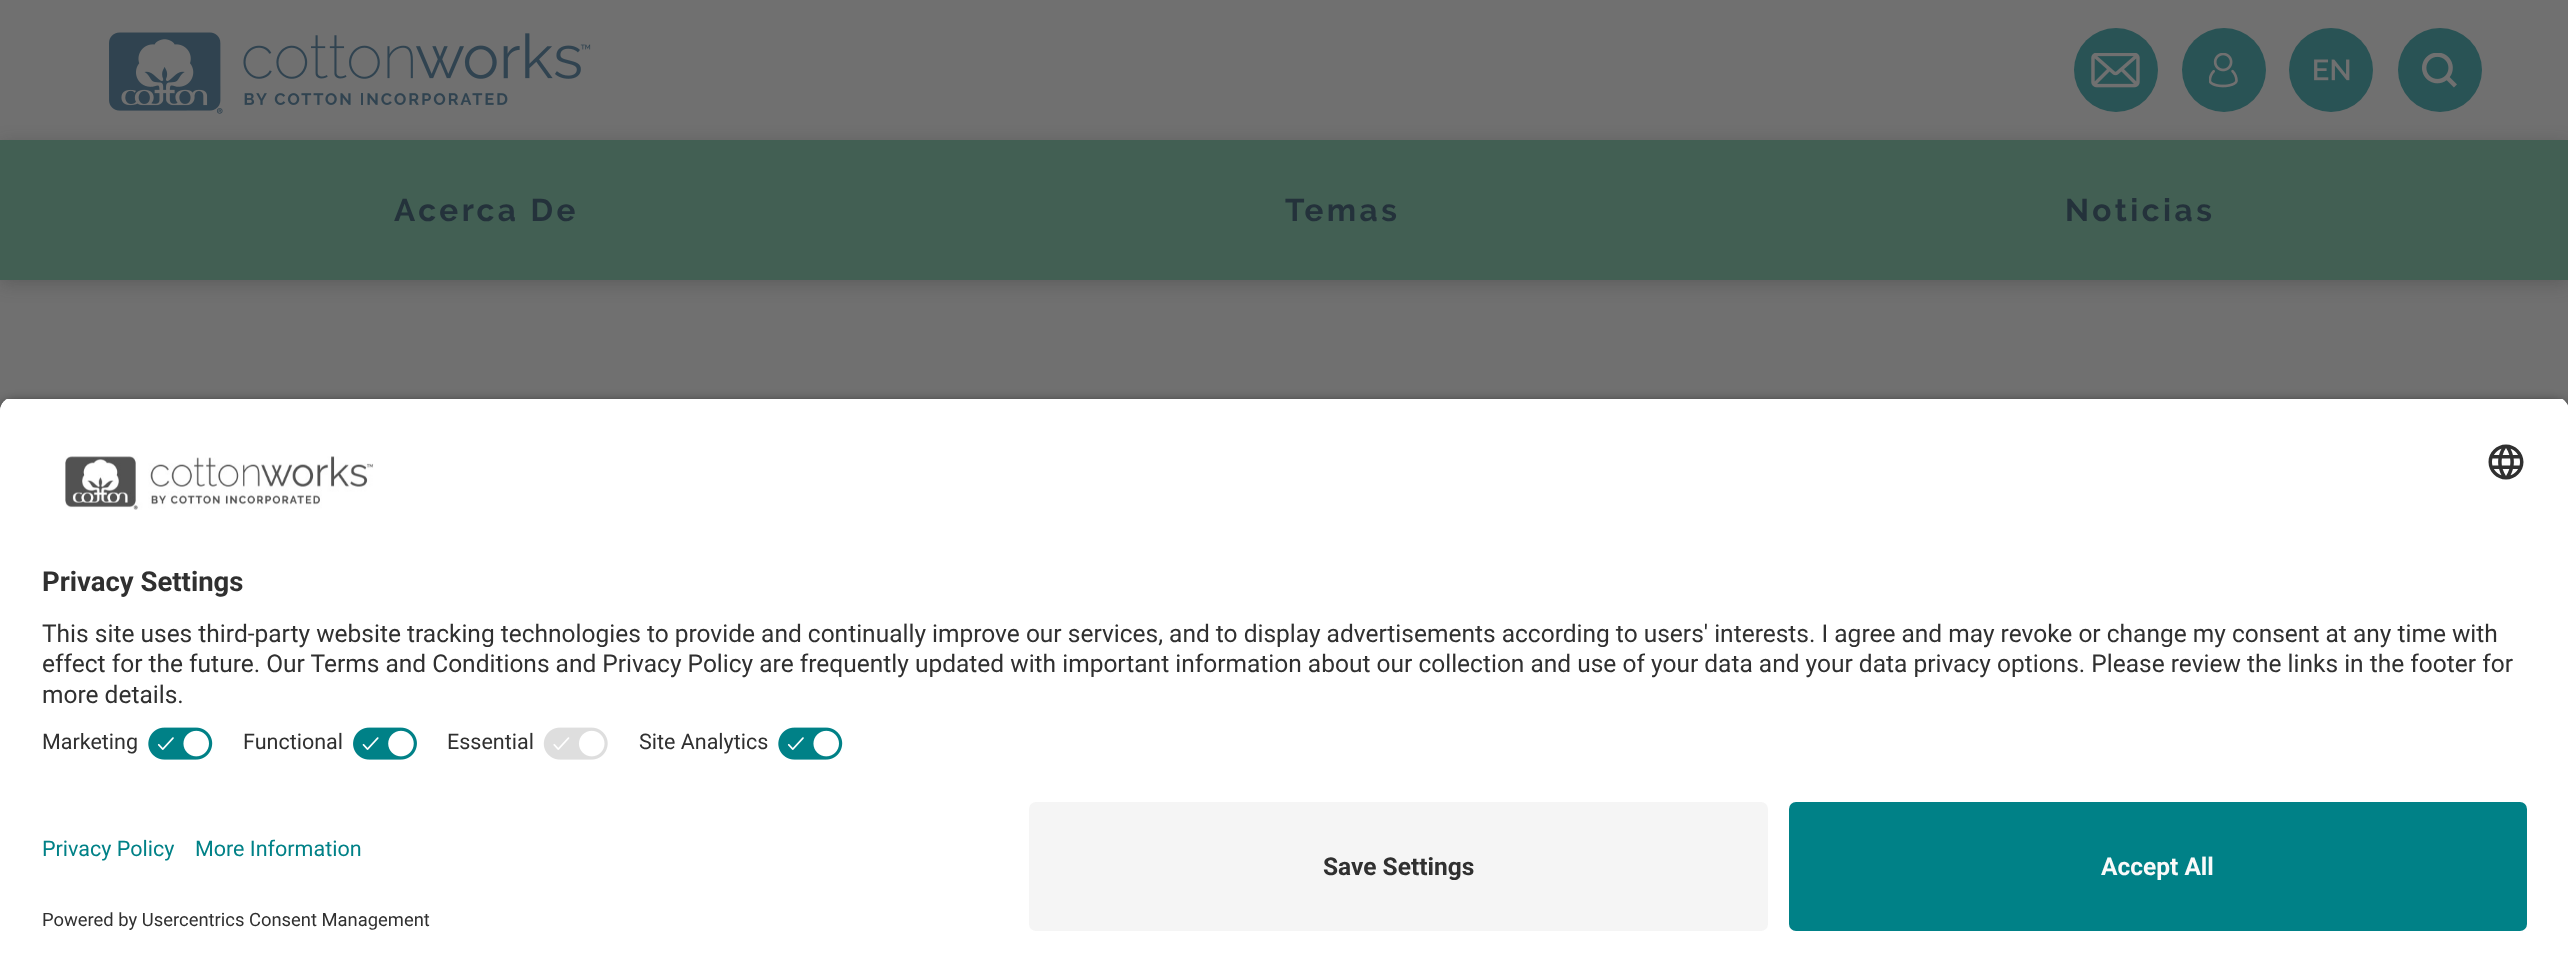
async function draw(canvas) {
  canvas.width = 2568
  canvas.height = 973
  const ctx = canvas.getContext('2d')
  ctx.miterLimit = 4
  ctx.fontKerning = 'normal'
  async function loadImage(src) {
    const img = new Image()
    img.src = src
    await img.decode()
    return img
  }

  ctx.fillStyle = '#707070'
  ctx.fillRect(0, 0, 2568, 973)
  ctx.drawImage(await loadImage('image0.png'), 109, 32, 482, 82)
  ctx.fillStyle = '#295355'
  ctx.beginPath()
  ctx.arc(2116, 70, 42, 0, 2 * Math.PI)
  ctx.fill()
  ctx.drawImage(await loadImage('image1.png'), 2091, 53, 49, 35)
  ctx.beginPath()
  ctx.arc(2224, 70, 42, 0, 2 * Math.PI)
  ctx.fill()
  ctx.drawImage(await loadImage('image2.png'), 2209, 53, 29, 35)
  ctx.beginPath()
  ctx.arc(2331, 70, 42, 0, 2 * Math.PI)
  ctx.fill()
  ctx.drawImage(await loadImage('image3.png'), 2314, 59, 36, 22)
  ctx.beginPath()
  ctx.arc(2440, 70, 42, 0, 2 * Math.PI)
  ctx.fill()
  ctx.drawImage(await loadImage('image4.png'), 2422, 53, 35, 35)
  ctx.fillStyle = '#24242440'
  ctx.filter = 'blur(9px)'
  ctx.beginPath()
  ctx.rect(0, 144, 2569, 140)
  ctx.fill()
  ctx.filter = 'none'
  ctx.fillStyle = '#425f53'
  ctx.fillRect(0, 140, 2568, 140)
  ctx.letterSpacing = '3.5px'
  ctx.font = 'bold 31.5px Raleway'
  ctx.fillStyle = '#24323b'
  ctx.fillText('Acerca De', 394, 221)
  ctx.fillText('Temas', 1285, 221)
  ctx.fillText('Noticias', 2065, 221)
  ctx.fillStyle = '#000000cc'
  ctx.filter = 'blur(6px)'
  ctx.beginPath()
  ctx.roundRect(0, 403, 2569, 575, 14)
  ctx.fill()
  ctx.filter = 'none'
  ctx.save()
  ctx.beginPath()
  ctx.moveTo(14, 397)
  ctx.lineTo(2555, 397)
  ctx.bezierCurveTo(2562.5, 397, 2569, 403.5, 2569, 411)
  ctx.lineTo(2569, 788)
  ctx.lineTo(0, 788)
  ctx.lineTo(0, 411)
  ctx.bezierCurveTo(0, 403.5, 6.5, 397, 14, 397)
  ctx.closePath()
  ctx.clip()
  ctx.fillStyle = '#fff'
  ctx.fillRect(0, 399, 2568, 389)
  ctx.fillRect(0, 399, 2568, 319)
  ctx.restore()
  ctx.drawImage(await loadImage('image5.png'), 65, 456, 309, 54)
  ctx.drawImage(await loadImage('image6.png'), 2488, 444, 36, 36)
  ctx.letterSpacing = '0px'
  ctx.font = 'bold 27.5px Roboto'
  ctx.fillStyle = '#303030'
  ctx.fillText('Privacy Settings', 42, 591)
  ctx.font = '24.5px Roboto'
  ctx.fillText('This site uses third-party website tracking technologies to provide and continually improve our services, and to display advertisements according to users\' interests. I agree and may revoke or change my consent at any time with', 42, 642)
  ctx.fillText('effect for the future. Our Terms and Conditions and Privacy Policy are frequently updated with important information about our collection and use of your data and your data privacy options. Please review the links in the footer for', 42, 672)
  ctx.fillText('more details.', 42, 703)
  ctx.font = '21.5px Roboto'
  ctx.fillText('Marketing', 42, 749)
  ctx.drawImage(await loadImage('image7.png'), 148, 727, 65, 33)
  ctx.fillText('Functional', 243, 749)
  ctx.drawImage(await loadImage('image8.png'), 353, 727, 64, 33)
  ctx.fillText('Essential', 447, 749)
  ctx.drawImage(await loadImage('image9.png'), 543, 727, 65, 33)
  ctx.fillText('Site Analytics', 639, 749)
  ctx.drawImage(await loadImage('image7.png'), 778, 727, 65, 33)
  ctx.fillStyle = '#fff'
  ctx.fillRect(0, 788, 2568, 185)
  ctx.fillStyle = '#008187'
  ctx.fillText('Privacy Policy', 42, 856)
  ctx.fillText('More Information', 195, 856)
  ctx.font = '18.4px Roboto'
  ctx.fillStyle = '#303030'
  ctx.fillText('Powered by Usercentrics Consent Management', 42, 926)
  ctx.fillStyle = '#f5f5f5'
  ctx.beginPath()
  ctx.roundRect(1029, 802, 739, 129, 7)
  ctx.fill()
  ctx.font = 'bold 24.5px Roboto'
  ctx.fillStyle = '#303030'
  ctx.fillText('Save Settings', 1323, 875)
  ctx.fillStyle = '#008187'
  ctx.beginPath()
  ctx.roundRect(1789, 802, 738, 129, 7)
  ctx.fill()
  ctx.fillStyle = '#fafafa'
  ctx.fillText('Accept All', 2101, 875)
}

draw(document.querySelector('canvas'))
